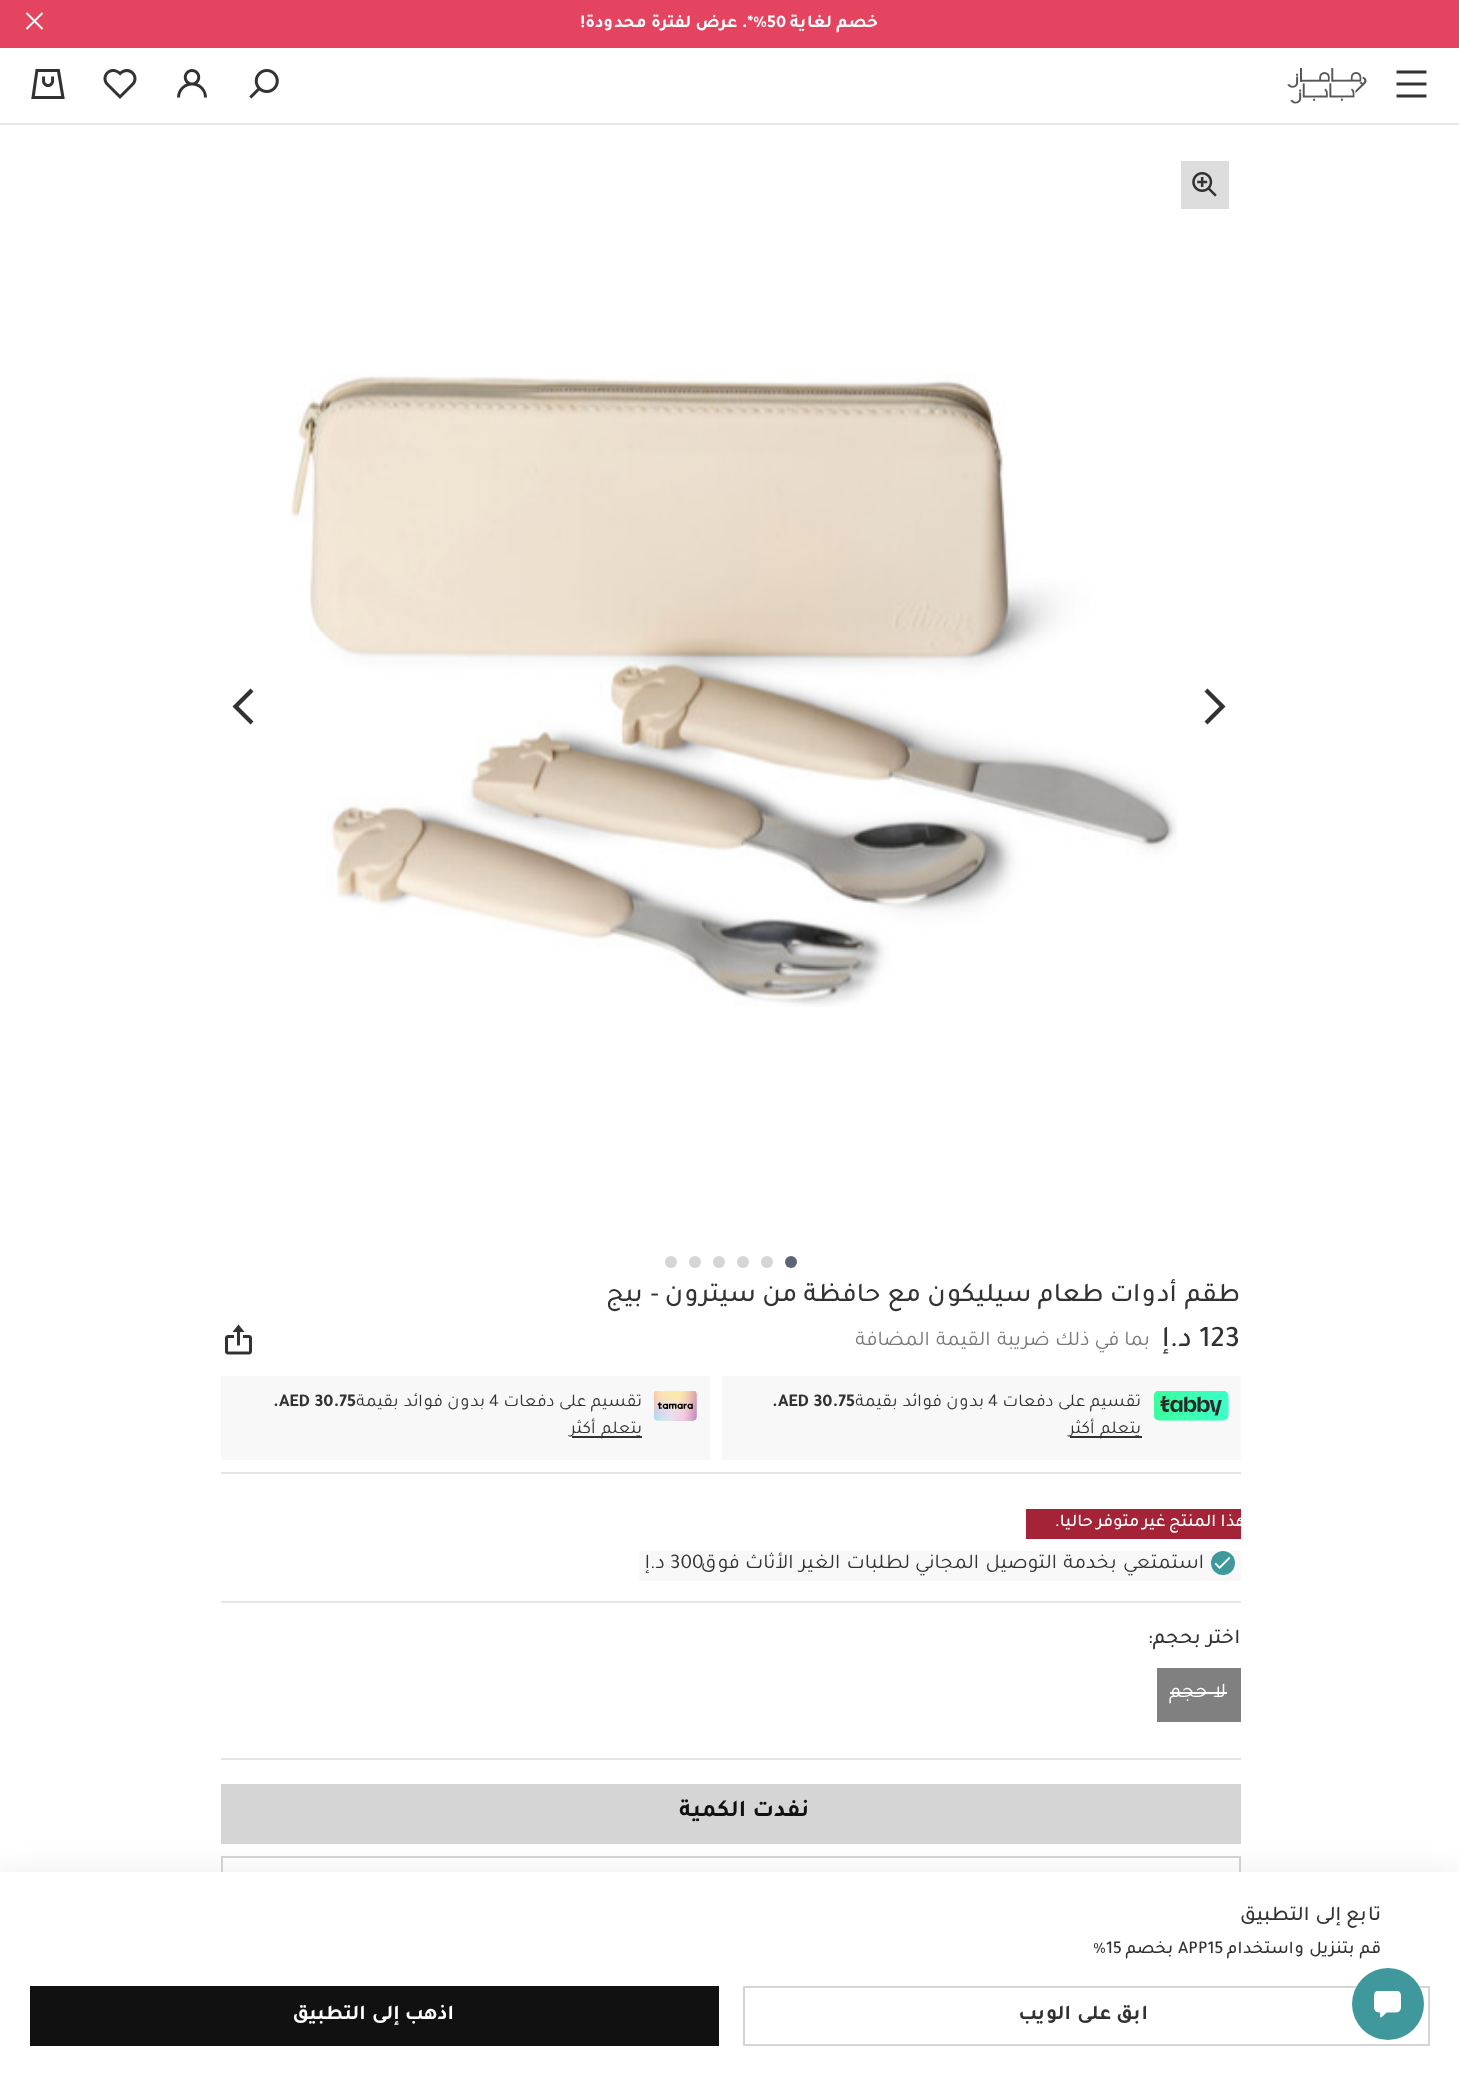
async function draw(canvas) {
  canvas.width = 1459
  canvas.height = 2076
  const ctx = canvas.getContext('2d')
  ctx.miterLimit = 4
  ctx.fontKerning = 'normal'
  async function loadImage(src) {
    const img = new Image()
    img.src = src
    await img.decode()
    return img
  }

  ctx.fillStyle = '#fff'
  ctx.fillRect(0, 0, 1459, 2076)
  ctx.fillStyle = '#e44460'
  ctx.fillRect(0, 0, 1459, 48)
  ctx.direction = 'rtl'
  ctx.font = 'bold 18px Tajawal'
  ctx.fillStyle = '#fff'
  ctx.fillText('خصم لغاية', 878, 27)
  ctx.direction = 'ltr'
  ctx.fillText('50', 767, 27)
  ctx.direction = 'rtl'
  ctx.fillText('%*. عرض لفترة محدودة!', 767, 27)
  ctx.drawImage(await loadImage('image0.png'), 25, 12, 19, 18)
  ctx.fillStyle = '#e6e6e6'
  ctx.fillRect(0, 123, 1459, 2)
  ctx.drawImage(await loadImage('image1.png'), 1396, 70, 31, 28)
  ctx.drawImage(await loadImage('image2.png'), 1287, 68, 80, 36)
  ctx.drawImage(await loadImage('image3.png'), 249, 69, 30, 30)
  ctx.drawImage(await loadImage('image4.png'), 177, 69, 30, 29)
  ctx.drawImage(await loadImage('image5.png'), 103, 69, 34, 30)
  ctx.drawImage(await loadImage('image6.png'), 31, 69, 34, 30)
  ctx.fillStyle = '#d5d5d5'
  ctx.fillRect(221, 1784, 1020, 60)
  ctx.strokeStyle = '#d5d5d5'
  ctx.lineWidth = 2
  ctx.strokeRect(222, 1857, 1018, 58)
  ctx.fillStyle = '#1111111a'
  ctx.filter = 'blur(15px)'
  ctx.beginPath()
  ctx.rect(0, 1875, 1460, 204)
  ctx.fill()
  ctx.filter = 'none'
  ctx.fillStyle = '#fff'
  ctx.fillRect(0, 1872, 1459, 204)
  ctx.strokeRect(744, 1987, 685, 58)
  ctx.fillStyle = '#3f999c'
  ctx.beginPath()
  ctx.arc(1388, 2004, 36, 0, 2 * Math.PI)
  ctx.fill()
  ctx.drawImage(await loadImage('image7.png'), 1374, 1991, 27, 27)
  ctx.fillStyle = '#ddd'
  ctx.fillRect(1181, 161, 48, 48)
  ctx.drawImage(await loadImage('image8.png'), 1192, 172, 25, 25)
  ctx.fillStyle = '#323232'
  ctx.beginPath()
  ctx.moveTo(1204.5, 691.5)
  ctx.lineTo(1207.5, 688.5)
  ctx.lineTo(1225.5, 706.5)
  ctx.lineTo(1207.5, 724.5)
  ctx.lineTo(1204.5, 721.5)
  ctx.lineTo(1219.5, 706.5)
  ctx.closePath()
  ctx.fill()
  ctx.drawImage(await loadImage('image9.png'), 290, 374, 888, 633)
  ctx.beginPath()
  ctx.moveTo(250.5, 688.5)
  ctx.lineTo(253.5, 691.5)
  ctx.lineTo(238.5, 706.5)
  ctx.lineTo(253.5, 721.5)
  ctx.lineTo(250.5, 724.5)
  ctx.lineTo(232.5, 706.5)
  ctx.closePath()
  ctx.fill()
  ctx.fillStyle = '#5b6674'
  ctx.beginPath()
  ctx.arc(791, 1262, 6, 0, 2 * Math.PI)
  ctx.fill()
  ctx.fillStyle = '#d5d5d5'
  ctx.beginPath()
  ctx.arc(767, 1262, 6, 0, 2 * Math.PI)
  ctx.fill()
  ctx.beginPath()
  ctx.arc(743, 1262, 6, 0, 2 * Math.PI)
  ctx.fill()
  ctx.beginPath()
  ctx.arc(719, 1262, 6, 0, 2 * Math.PI)
  ctx.fill()
  ctx.beginPath()
  ctx.arc(695, 1262, 6, 0, 2 * Math.PI)
  ctx.fill()
  ctx.beginPath()
  ctx.arc(671, 1262, 6, 0, 2 * Math.PI)
  ctx.fill()
  ctx.fillStyle = '#e6e6e6'
  ctx.fillRect(221, 1472, 1020, 2)
  ctx.font = '500 27px Tajawal'
  ctx.fillStyle = '#323232'
  ctx.fillText('طقم أدوات طعام سيليكون مع حافظة من سيترون - بيج', 1240, 1301)
  ctx.direction = 'ltr'
  ctx.font = '500 30px Tajawal'
  ctx.fillText('123', 1199, 1346)
  ctx.direction = 'rtl'
  ctx.fillText('د.إ', 1192, 1346)
  ctx.font = '21px Tajawal'
  ctx.fillStyle = '#797979'
  ctx.fillText('بما في ذلك ضريبة القيمة المضافة', 1150, 1345)
  ctx.drawImage(await loadImage('image10.png'), 225, 1324, 27, 31)
  ctx.fillStyle = '#f8f8f8'
  ctx.fillRect(722, 1376, 519, 84)
  ctx.drawImage(await loadImage('image11.png'), 1154, 1391, 75, 30)
  ctx.font = '18px Tajawal'
  ctx.fillStyle = '#323232'
  ctx.fillText('تقسيم على دفعات', 1141, 1406)
  ctx.direction = 'ltr'
  ctx.fillText('4', 988, 1406)
  ctx.direction = 'rtl'
  ctx.fillText('بدون فوائد بقيمة', 984, 1406)
  ctx.direction = 'ltr'
  ctx.font = 'bold 18px Tajawal'
  ctx.fillText('.AED 30.75', 772, 1406)
  ctx.fillRect(1070, 1436, 72, 2)
  ctx.direction = 'rtl'
  ctx.font = '18px Tajawal'
  ctx.fillText('يتعلم أكثر', 1141, 1433)
  ctx.fillStyle = '#f8f8f8'
  ctx.fillRect(221, 1376, 489, 84)
  ctx.drawImage(await loadImage('image12.png'), 654, 1391, 43, 30)
  ctx.fillStyle = '#323232'
  ctx.fillText('تقسيم على دفعات', 642, 1406)
  ctx.direction = 'ltr'
  ctx.fillText('4', 489, 1406)
  ctx.direction = 'rtl'
  ctx.fillText('بدون فوائد بقيمة', 485, 1406)
  ctx.direction = 'ltr'
  ctx.font = 'bold 18px Tajawal'
  ctx.fillText('.AED 30.75', 273, 1406)
  ctx.fillRect(572, 1436, 70, 2)
  ctx.direction = 'rtl'
  ctx.font = '18px Tajawal'
  ctx.fillText('يتعلم أكثر', 642, 1433)
  ctx.fillStyle = '#e6e6e6'
  ctx.fillRect(221, 1601, 1020, 2)
  ctx.fillStyle = '#a42337'
  ctx.fillRect(1026, 1509, 215, 30)
  ctx.letterSpacing = '0.75px'
  ctx.wordSpacing = '-1px'
  ctx.font = '500 18px Tajawal'
  ctx.fillStyle = '#fff'
  ctx.fillText('هذا المنتج غير متوفر حاليا.', 1247, 1526)
  ctx.fillStyle = '#f8f8f8'
  ctx.fillRect(639, 1551, 602, 30)
  ctx.fillStyle = '#3f999c'
  ctx.beginPath()
  ctx.arc(1223, 1563, 12, 0, 2 * Math.PI)
  ctx.fill()
  ctx.drawImage(await loadImage('image13.png'), 1214, 1557, 17, 12)
  ctx.letterSpacing = '0px'
  ctx.wordSpacing = '0px'
  ctx.font = '21px Tajawal'
  ctx.fillStyle = '#323232'
  ctx.fillText('استمتعي بخدمة التوصيل المجاني لطلبات الغير الأثاث فوق', 1204, 1568)
  ctx.direction = 'ltr'
  ctx.fillText('300', 670, 1568)
  ctx.direction = 'rtl'
  ctx.fillText('د.إ', 665, 1568)
  ctx.fillStyle = '#e6e6e6'
  ctx.fillRect(221, 1758, 1020, 2)
  ctx.font = '500 21px Tajawal'
  ctx.fillStyle = '#323232'
  ctx.fillText('اختر بحجم:', 1240, 1643)
  ctx.fillStyle = '#808080'
  ctx.fillRect(1157, 1668, 84, 54)
  ctx.font = '21px Tajawal'
  ctx.fillStyle = '#fff'
  ctx.fillText('لا حجم', 1226, 1697)
  ctx.fillRect(1170, 1692, 57, 2)
  ctx.letterSpacing = '1.5px'
  ctx.wordSpacing = '-1px'
  ctx.font = 'bold 24px Tajawal'
  ctx.fillStyle = '#111'
  ctx.fillText('نفدت الكمية', 809, 1816)
  ctx.letterSpacing = '0px'
  ctx.wordSpacing = '0px'
  ctx.font = '500 21px Tajawal'
  ctx.fillStyle = '#323232'
  ctx.fillText('تابع إلى التطبيق', 1381, 1920)
  ctx.font = '500 18px Tajawal'
  ctx.fillText('قم بتنزيل واستخدام', 1381, 1953)
  ctx.direction = 'ltr'
  ctx.fillText('APP15', 1178, 1953)
  ctx.direction = 'rtl'
  ctx.fillText('بخصم', 1173, 1953)
  ctx.direction = 'ltr'
  ctx.fillText('٪15', 1093, 1953)
  ctx.direction = 'rtl'
  ctx.font = 'bold 21px Tajawal'
  ctx.fillText('ابق على الويب', 1148, 2019)
  ctx.fillStyle = '#111'
  ctx.fillRect(30, 1986, 689, 60)
  ctx.fillStyle = '#fff'
  ctx.fillText('اذهب إلى التطبيق', 454, 2019)
}

draw(document.querySelector('canvas'))
